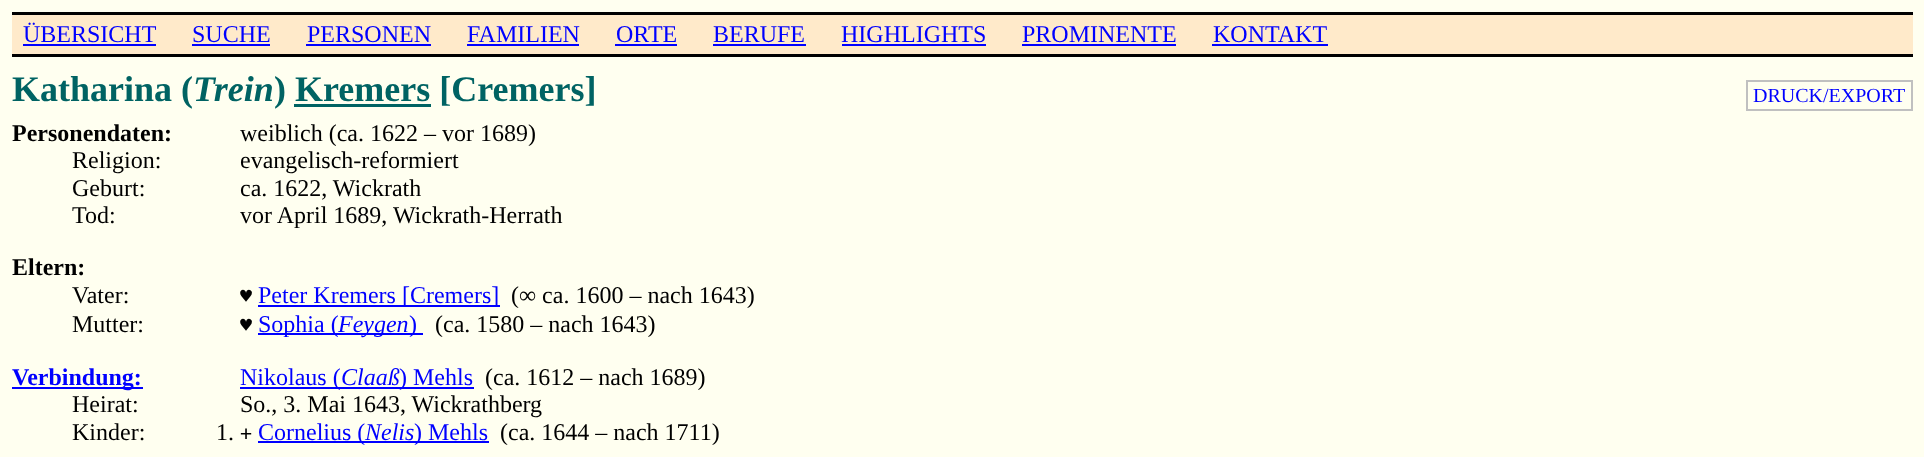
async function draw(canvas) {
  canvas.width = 1924
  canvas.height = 457
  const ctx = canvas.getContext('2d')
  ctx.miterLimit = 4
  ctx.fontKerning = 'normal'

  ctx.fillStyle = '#fffff0'
  ctx.fillRect(0, 0, 1924, 457)
  ctx.fillStyle = '#ffeaca'
  ctx.fillRect(12, 15, 1901, 39)
  ctx.fillStyle = '#000'
  ctx.fillRect(12, 12, 1901, 3)
  ctx.fillRect(12, 54, 1901, 3)
  ctx.font = '24px Liberation Serif'
  ctx.fillStyle = '#00f'
  ctx.fillText('ÜBERSICHT', 23, 42)
  ctx.fillRect(23, 44, 133, 2)
  ctx.fillText('SUCHE', 192, 42)
  ctx.fillRect(192, 44, 78, 2)
  ctx.fillText('PERSONEN', 307, 42)
  ctx.fillRect(306, 44, 125, 2)
  ctx.fillText('FAMILIEN', 467, 42)
  ctx.fillRect(467, 44, 112, 2)
  ctx.fillText('ORTE', 616, 42)
  ctx.fillRect(615, 44, 62, 2)
  ctx.fillText('BERUFE', 713, 42)
  ctx.fillRect(713, 44, 93, 2)
  ctx.fillText('HIGHLIGHTS', 841, 42)
  ctx.fillRect(842, 44, 144, 2)
  ctx.fillText('PROMINENTE', 1022, 42)
  ctx.fillRect(1022, 44, 154, 2)
  ctx.fillText('KONTAKT', 1213, 42)
  ctx.fillRect(1212, 44, 116, 2)
  ctx.font = 'bold 36px Liberation Serif'
  ctx.fillStyle = '#006363'
  ctx.fillText('Katharina (', 12, 101)
  ctx.font = 'italic bold 36px Liberation Serif'
  ctx.fillText('Trein', 193, 101)
  ctx.font = 'bold 36px Liberation Serif'
  ctx.fillText(') Kremers [Cremers]', 274, 101)
  ctx.fillRect(294, 104, 137, 3)
  ctx.strokeStyle = '#c0c0c0'
  ctx.lineWidth = 2
  ctx.strokeRect(1747, 81, 165, 29)
  ctx.font = '20px Liberation Serif'
  ctx.fillStyle = '#00f'
  ctx.fillText('DRUCK/EXPORT', 1753, 102)
  ctx.font = 'bold 24px Liberation Serif'
  ctx.fillStyle = '#000'
  ctx.fillText('Personendaten:', 12, 141)
  ctx.font = '24px Liberation Serif'
  ctx.fillText('weiblich (ca. 1622 – vor 1689)', 240, 141)
  ctx.fillText('Religion:', 72, 168)
  ctx.fillText('evangelisch-reformiert', 240, 168)
  ctx.fillText('Geburt:', 72, 196)
  ctx.fillText('ca. 1622, Wickrath', 240, 196)
  ctx.fillText('Tod:', 72, 223)
  ctx.fillText('vor April 1689, Wickrath-Herrath', 240, 223)
  ctx.font = 'bold 24px Liberation Serif'
  ctx.fillText('Eltern:', 12, 275)
  ctx.font = '24px Liberation Serif'
  ctx.fillText('Vater:', 72, 303)
  ctx.font = '20px DejaVu Sans Mono'
  ctx.fillText('♥', 240, 303)
  ctx.fillStyle = '#00f'
  ctx.fillRect(258, 305, 242, 2)
  ctx.font = '24px Liberation Serif'
  ctx.fillText('Peter Kremers [Cremers]', 258, 303)
  ctx.fillStyle = '#000'
  ctx.fillText('(∞ ca. 1600 – nach 1643)', 511, 303)
  ctx.fillText('Mutter:', 72, 332)
  ctx.font = '20px DejaVu Sans Mono'
  ctx.fillText('♥', 240, 332)
  ctx.fillStyle = '#00f'
  ctx.fillRect(258, 333, 165, 2)
  ctx.font = '24px Liberation Serif'
  ctx.fillText('Sophia (', 258, 332)
  ctx.font = 'italic 24px Liberation Serif'
  ctx.fillText('Feygen', 338, 332)
  ctx.font = '24px Liberation Serif'
  ctx.fillText(')', 409, 332)
  ctx.fillStyle = '#000'
  ctx.fillText('(ca. 1580 – nach 1643)', 435, 332)
  ctx.fillStyle = '#00f'
  ctx.fillRect(12, 387, 131, 2)
  ctx.font = 'bold 24px Liberation Serif'
  ctx.fillText('Verbindung:', 12, 385)
  ctx.fillRect(240, 387, 234, 2)
  ctx.font = '24px Liberation Serif'
  ctx.fillText('Nikolaus (', 240, 385)
  ctx.font = 'italic 24px Liberation Serif'
  ctx.fillText('Claaß', 341, 385)
  ctx.font = '24px Liberation Serif'
  ctx.fillText(') Mehls', 399, 385)
  ctx.fillStyle = '#000'
  ctx.fillText('(ca. 1612 – nach 1689)', 485, 385)
  ctx.fillText('Heirat:', 72, 412)
  ctx.fillText('So., 3. Mai 1643, Wickrathberg', 240, 412)
  ctx.fillText('Kinder:', 72, 440)
  ctx.fillText('1.', 216, 440)
  ctx.font = '20px DejaVu Sans Mono'
  ctx.fillText('+', 240, 440)
  ctx.fillStyle = '#00f'
  ctx.fillRect(258, 441, 231, 2)
  ctx.font = '24px Liberation Serif'
  ctx.fillText('Cornelius (', 258, 440)
  ctx.font = 'italic 24px Liberation Serif'
  ctx.fillText('Nelis', 365, 440)
  ctx.font = '24px Liberation Serif'
  ctx.fillText(') Mehls', 414, 440)
  ctx.fillStyle = '#000'
  ctx.fillText('(ca. 1644 – nach 1711)', 500, 440)
}

draw(document.querySelector('canvas'))
